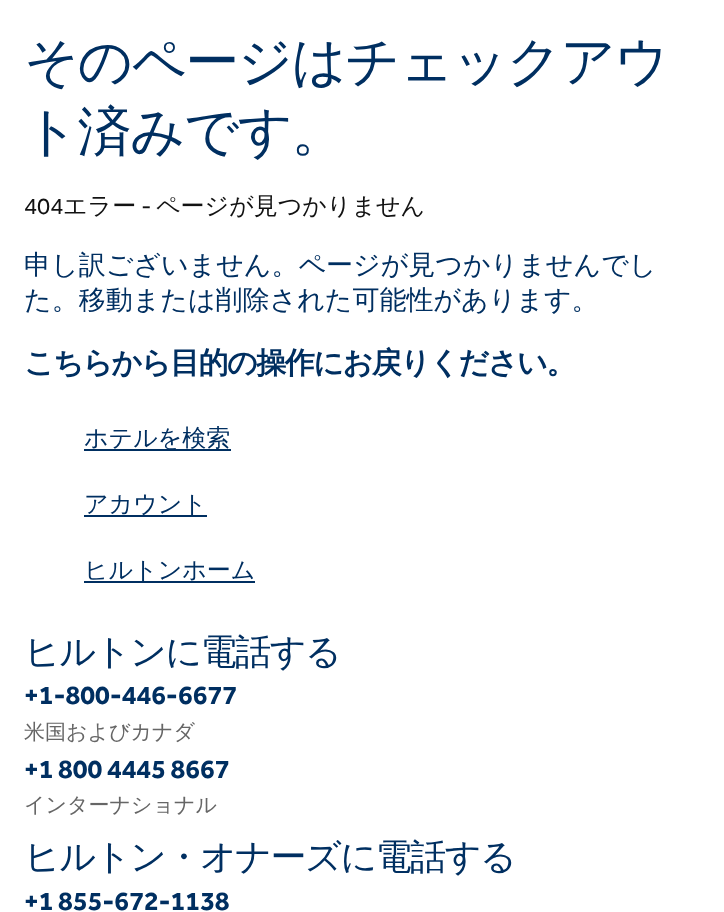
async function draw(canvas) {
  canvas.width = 724
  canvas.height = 912
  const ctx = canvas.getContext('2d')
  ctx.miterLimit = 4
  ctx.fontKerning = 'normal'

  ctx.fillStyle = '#fff'
  ctx.fillRect(0, 0, 724, 912)
  ctx.letterSpacing = '-1.5px'
  ctx.font = '500 54px WenQuanYi Zen Hei'
  ctx.fillStyle = '#002f61'
  ctx.fillText('そのページはチェックアウ', 24, 80)
  ctx.fillText('ト済みです。', 24, 150)
  ctx.letterSpacing = '0px'
  ctx.font = '24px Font'
  ctx.fillStyle = '#121212'
  ctx.fillText('404', 24, 214)
  ctx.font = '500 24px WenQuanYi Zen Hei'
  ctx.fillText('エラー', 63, 214)
  ctx.font = '24px Font'
  ctx.fillText('-', 141, 214)
  ctx.font = '500 24px WenQuanYi Zen Hei'
  ctx.fillText('ページが見つかりません', 156, 214)
  ctx.font = '500 27px WenQuanYi Zen Hei'
  ctx.fillStyle = '#002f61'
  ctx.fillText('申し訳ございません。ページが見つかりませんでし', 24, 274)
  ctx.fillText('た。移動または削除された可能性があります。', 24, 309)
  ctx.letterSpacing = '-1.5px'
  ctx.font = 'bold 30px WenQuanYi Zen Hei'
  ctx.fillText('こちらから目的の操作にお戻りください。', 24, 373)
  ctx.fillRect(84, 449, 147, 2)
  ctx.letterSpacing = '0px'
  ctx.font = '500 24px WenQuanYi Zen Hei'
  ctx.fillText('ホテルを検索', 84, 446)
  ctx.fillRect(84, 515, 123, 2)
  ctx.fillText('アカウント', 84, 512)
  ctx.fillText('ヒルトンホーム', 84, 578)
  ctx.fillRect(84, 581, 171, 2)
  ctx.letterSpacing = '-1.5px'
  ctx.font = '500 36px WenQuanYi Zen Hei'
  ctx.fillText('ヒルトンに電話する', 24, 664)
  ctx.letterSpacing = '0px'
  ctx.font = 'bold 27px Font'
  ctx.fillText('+1-800-446-6677', 24, 704)
  ctx.font = '500 21px WenQuanYi Zen Hei'
  ctx.fillStyle = '#666'
  ctx.fillText('米国およびカナダ', 24, 739)
  ctx.font = 'bold 27px Font'
  ctx.fillStyle = '#002f61'
  ctx.fillText('+1 800 4445 8667', 24, 778)
  ctx.font = '500 21px WenQuanYi Zen Hei'
  ctx.fillStyle = '#666'
  ctx.fillText('インターナショナル', 24, 812)
  ctx.letterSpacing = '-1.5px'
  ctx.font = '500 36px WenQuanYi Zen Hei'
  ctx.fillStyle = '#002f61'
  ctx.fillText('ヒルトン・オナーズに電話する', 24, 869)
  ctx.letterSpacing = '0px'
  ctx.font = 'bold 27px Font'
  ctx.fillText('+1 855-672-1138', 24, 910)
}

draw(document.querySelector('canvas'))
